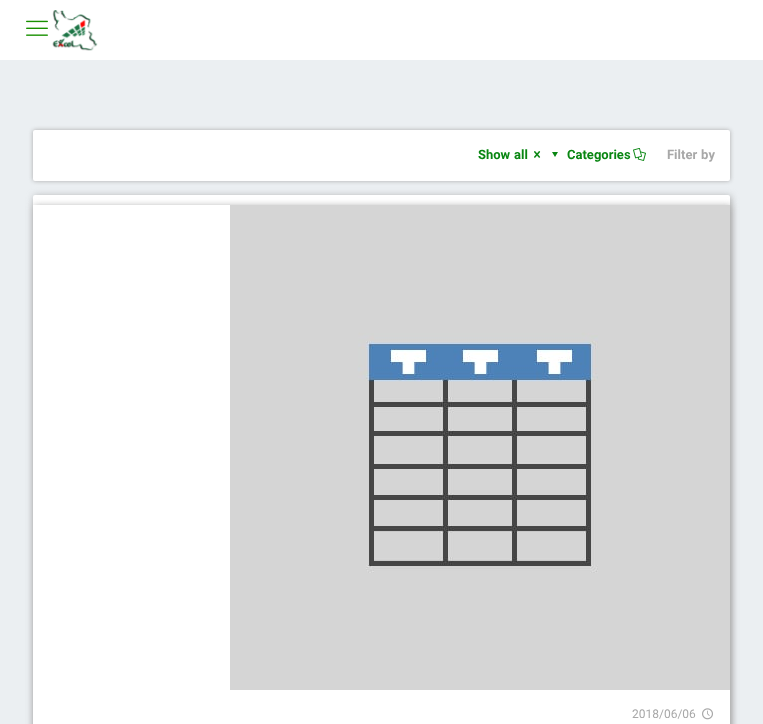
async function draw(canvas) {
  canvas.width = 763
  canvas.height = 724
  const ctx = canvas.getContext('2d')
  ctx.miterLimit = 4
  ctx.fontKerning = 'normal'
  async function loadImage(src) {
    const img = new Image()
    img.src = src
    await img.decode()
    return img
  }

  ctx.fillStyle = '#ebeff2'
  ctx.fillRect(0, 0, 763, 724)
  ctx.fillStyle = '#fff'
  ctx.fillRect(0, 0, 763, 60)
  ctx.drawImage(await loadImage('image0.png'), 26, 20, 22, 16)
  ctx.drawImage(await loadImage('image1.png'), 52, 10, 46, 41)
  ctx.fillStyle = '#aaa'
  ctx.filter = 'blur(2px)'
  ctx.beginPath()
  ctx.roundRect(33, 130, 697, 51, 2)
  ctx.fill()
  ctx.filter = 'none'
  ctx.fillStyle = '#fff'
  ctx.beginPath()
  ctx.roundRect(33, 130, 697, 51, 2)
  ctx.fill()
  ctx.font = 'bold 13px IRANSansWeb'
  ctx.fillStyle = '#098612'
  ctx.fillText('Show all', 478, 159)
  ctx.drawImage(await loadImage('image2.png'), 534, 151, 7, 7)
  ctx.beginPath()
  ctx.moveTo(558, 152)
  ctx.lineTo(555, 157)
  ctx.lineTo(552, 152)
  ctx.closePath()
  ctx.fill()
  ctx.fillText('Categories', 567, 159)
  ctx.drawImage(await loadImage('image3.png'), 633, 148, 13, 13)
  ctx.fillStyle = '#a8a8a8'
  ctx.fillText('Filter by', 667, 159)
  ctx.fillStyle = '#aaa'
  ctx.filter = 'blur(3.5px)'
  ctx.beginPath()
  ctx.roundRect(34, 196, 697, 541, 2)
  ctx.fill()
  ctx.filter = 'none'
  ctx.fillStyle = '#fff'
  ctx.beginPath()
  ctx.roundRect(33, 195, 697, 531, 2)
  ctx.fill()
  ctx.save()
  ctx.beginPath()
  ctx.moveTo(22, 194)
  ctx.lineTo(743, 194)
  ctx.lineTo(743, 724)
  ctx.lineTo(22, 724)
  ctx.closePath()
  ctx.moveTo(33, 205)
  ctx.lineTo(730, 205)
  ctx.lineTo(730, 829)
  ctx.lineTo(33, 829)
  ctx.closePath()
  ctx.clip('evenodd')
  ctx.fillStyle = '#aaa'
  ctx.filter = 'blur(3.5px)'
  ctx.beginPath()
  ctx.rect(34, 206, 697, 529)
  ctx.fill()
  ctx.filter = 'none'
  ctx.restore()
  ctx.drawImage(await loadImage('image4.png'), 230, 205, 500, 485)
  ctx.font = '12px IRANSansWeb'
  ctx.fillStyle = '#a8a8a8'
  ctx.fillText('2018/06/06', 632, 718)
  ctx.drawImage(await loadImage('image5.png'), 702, 708, 11, 12)
}

draw(document.querySelector('canvas'))
